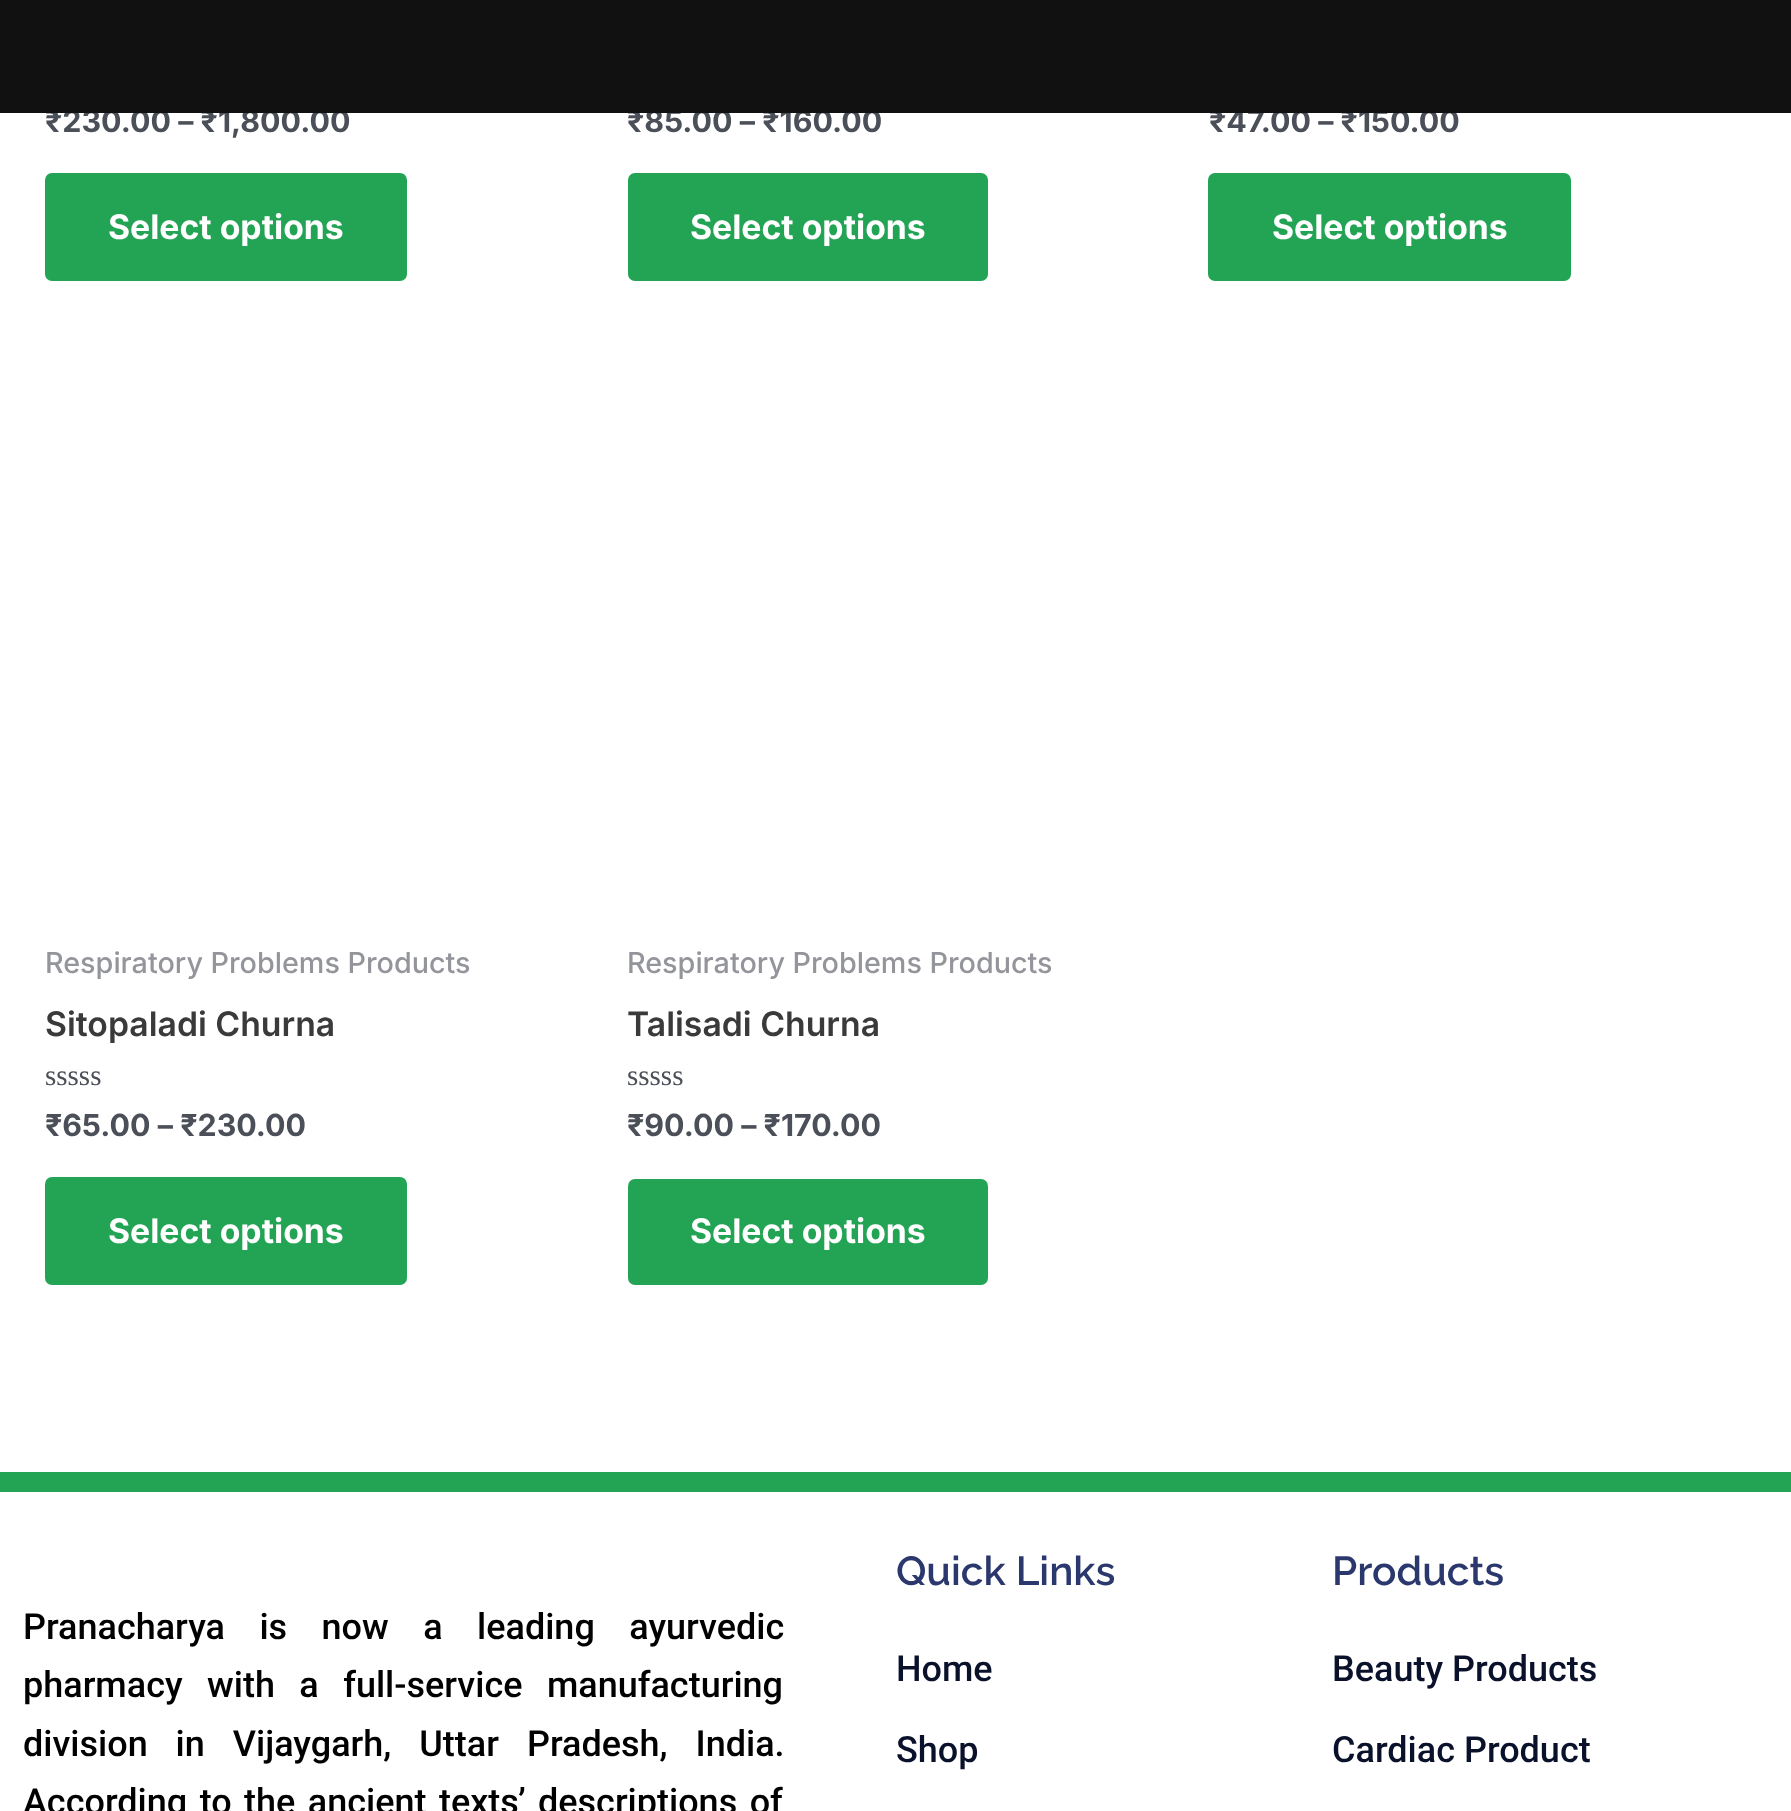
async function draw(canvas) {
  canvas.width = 1791
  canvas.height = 1811
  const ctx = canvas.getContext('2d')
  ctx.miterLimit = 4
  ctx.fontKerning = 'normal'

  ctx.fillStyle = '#fff'
  ctx.fillRect(0, 0, 1791, 1811)
  ctx.font = 'bold 30.4px Inter'
  ctx.fillStyle = '#4b4f58'
  ctx.fillText('₹230.00 – ₹1,800.00', 45, 132)
  ctx.fillText('₹85.00 – ₹160.00', 627, 132)
  ctx.fillText('₹47.00 – ₹150.00', 1209, 132)
  ctx.fillStyle = '#111'
  ctx.fillRect(0, 0, 1791, 113)
  ctx.fillStyle = '#23a455'
  ctx.beginPath()
  ctx.roundRect(45, 173, 362, 108, 7)
  ctx.fill()
  ctx.font = 'bold 33.75px Inter'
  ctx.fillStyle = '#fff'
  ctx.fillText('Select options', 108, 239)
  ctx.fillStyle = '#23a455'
  ctx.beginPath()
  ctx.roundRect(628, 173, 360, 108, 7)
  ctx.fill()
  ctx.fillStyle = '#fff'
  ctx.fillText('Select options', 690, 239)
  ctx.fillStyle = '#23a455'
  ctx.beginPath()
  ctx.roundRect(1208, 173, 363, 108, 7)
  ctx.fill()
  ctx.fillStyle = '#fff'
  ctx.fillText('Select options', 1272, 239)
  ctx.font = '500 28.75px Inter'
  ctx.fillStyle = '#93959b'
  ctx.fillText('Respiratory Problems Products', 45, 973)
  ctx.font = '600 33.75px Inter'
  ctx.fillStyle = '#3a3a3a'
  ctx.fillText('Sitopaladi Churna', 45, 1036)
  ctx.font = '29px Liberation Serif'
  ctx.fillStyle = '#4b4f58'
  ctx.fillText('sssss', 45, 1085)
  ctx.font = 'bold 30.4px Inter'
  ctx.fillText('₹65.00 – ₹230.00', 45, 1136)
  ctx.fillStyle = '#23a455'
  ctx.beginPath()
  ctx.roundRect(45, 1177, 362, 108, 7)
  ctx.fill()
  ctx.font = 'bold 33.75px Inter'
  ctx.fillStyle = '#fff'
  ctx.fillText('Select options', 108, 1243)
  ctx.font = '500 28.75px Inter'
  ctx.fillStyle = '#93959b'
  ctx.fillText('Respiratory Problems Products', 627, 973)
  ctx.font = '600 33.75px Inter'
  ctx.fillStyle = '#3a3a3a'
  ctx.fillText('Talisadi Churna', 627, 1036)
  ctx.font = '29px Liberation Serif'
  ctx.fillStyle = '#4b4f58'
  ctx.fillText('sssss', 627, 1085)
  ctx.font = 'bold 30.4px Inter'
  ctx.fillText('₹90.00 – ₹170.00', 627, 1136)
  ctx.fillStyle = '#23a455'
  ctx.beginPath()
  ctx.roundRect(628, 1179, 360, 106, 7)
  ctx.fill()
  ctx.font = 'bold 33.75px Inter'
  ctx.fillStyle = '#fff'
  ctx.fillText('Select options', 690, 1243)
  ctx.fillStyle = '#23a455'
  ctx.fillRect(0, 1472, 1791, 20)
  ctx.wordSpacing = '25.5px'
  ctx.font = '500 36px Roboto'
  ctx.fillStyle = '#000'
  ctx.fillText('Pranacharya is now a leading ayurvedic', 23, 1639)
  ctx.wordSpacing = '15.5px'
  ctx.fillText('pharmacy with a full-service manufacturing', 23, 1697)
  ctx.wordSpacing = '19px'
  ctx.fillText('division in Vijaygarh, Uttar Pradesh, India.', 23, 1756)
  ctx.wordSpacing = '3.5px'
  ctx.fillText('According to the ancient texts', 23, 1814)
  ctx.wordSpacing = '0px'
  ctx.fillText('’', 518, 1814)
  ctx.wordSpacing = '3.5px'
  ctx.fillText('descriptions of', 538, 1814)
  ctx.wordSpacing = '0px'
  ctx.font = '600 40.5px Raleway'
  ctx.fillStyle = '#2b386d'
  ctx.fillText('Quick Links', 896, 1585)
  ctx.font = '500 36px Roboto'
  ctx.fillStyle = '#0a122b'
  ctx.fillText('Home', 896, 1681)
  ctx.fillText('Shop', 896, 1762)
  ctx.font = '600 40.5px Raleway'
  ctx.fillStyle = '#2b386d'
  ctx.fillText('Products', 1332, 1585)
  ctx.font = '500 36px Roboto'
  ctx.fillStyle = '#0a122b'
  ctx.fillText('Beauty Products', 1332, 1681)
  ctx.fillText('Cardiac Product', 1332, 1762)
}

draw(document.querySelector('canvas'))
